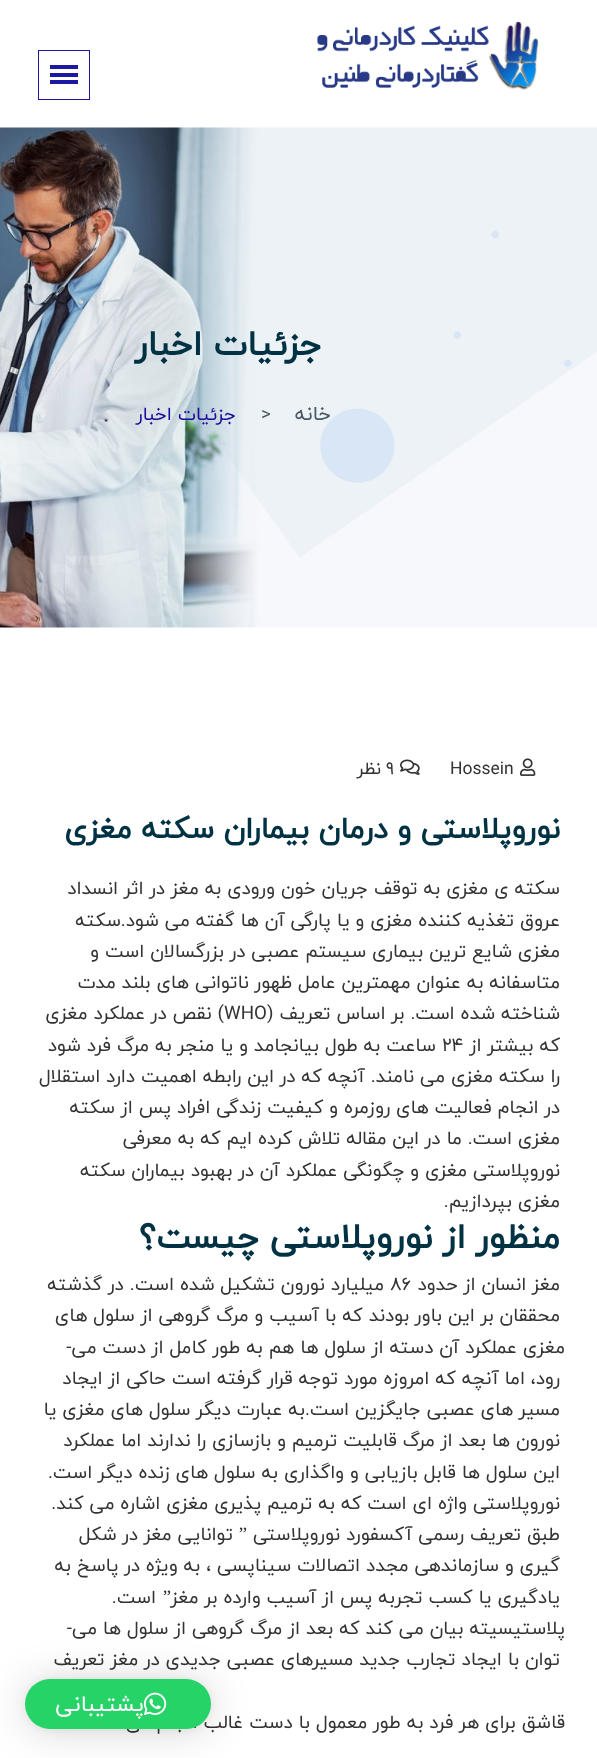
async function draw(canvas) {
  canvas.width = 597
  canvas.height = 1758
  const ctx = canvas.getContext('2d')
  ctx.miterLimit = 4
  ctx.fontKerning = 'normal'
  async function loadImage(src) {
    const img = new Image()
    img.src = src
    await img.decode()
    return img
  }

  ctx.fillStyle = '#fff'
  ctx.fillRect(0, 0, 597, 1758)
  ctx.drawImage(await loadImage('image0.png'), 316, 20, 223, 70)
  ctx.strokeStyle = '#1c19a0'
  ctx.strokeRect(38.5, 50.5, 51, 49)
  ctx.fillStyle = '#1c19a0'
  ctx.fillRect(50, 65, 28, 4)
  ctx.fillRect(50, 73, 28, 4)
  ctx.fillRect(50, 80, 28, 4)
  ctx.drawImage(await loadImage('image1.png'), 0, 127, 597, 501)
  ctx.direction = 'rtl'
  ctx.font = 'bold 35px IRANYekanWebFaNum'
  ctx.fillStyle = '#013243'
  ctx.fillText('جزئیات اخبار', 322, 355)
  ctx.font = '20px IRANYekanWebFaNum'
  ctx.fillStyle = '#4a5764'
  ctx.fillText('خانه', 331, 420)
  ctx.direction = 'ltr'
  ctx.font = '18.75px IRANYekanWebFaNum'
  ctx.fillText('>', 261, 420)
  ctx.direction = 'rtl'
  ctx.fillStyle = '#1e0b9b'
  ctx.fillText('جزئیات اخبار', 236, 420)
  ctx.drawImage(await loadImage('image2.png'), 520, 758, 16, 18)
  ctx.direction = 'ltr'
  ctx.font = '17.5px IRANYekanWebFaNum'
  ctx.fillStyle = '#333'
  ctx.fillText('Hossein', 450, 774)
  ctx.drawImage(await loadImage('image3.png'), 400, 759, 20, 16)
  ctx.fillText('9', 386, 774)
  ctx.direction = 'rtl'
  ctx.fillText('نظر', 381, 774)
  ctx.font = 'bold 30px IRANYekanWebFaNum'
  ctx.fillStyle = '#013243'
  ctx.fillText('نوروپلاستی و درمان بیماران سکته مغزی', 560, 838)
  ctx.font = '18.75px IRANYekanWebFaNum'
  ctx.fillStyle = '#333'
  ctx.fillText('سکته ی مغزی به توقف جریان خون ورودی به مغز در اثر انسداد', 560, 894)
  ctx.fillText('عروق تغذیه کننده مغزی و یا پارگی آن ها گفته می شود.سکته', 560, 926)
  ctx.fillText('مغزی شایع ترین بیماری سیستم عصبی در بزرگسالان است و', 560, 957)
  ctx.fillText('متاسفانه به عنوان مهمترین عامل ظهور ناتوانی های بلند مدت', 560, 988)
  ctx.fillText('شناخته شده است. بر اساس تعریف (', 560, 1019)
  ctx.direction = 'ltr'
  ctx.fillText('WHO', 224, 1019)
  ctx.direction = 'rtl'
  ctx.fillText(') نقص در عملکرد مغزی', 224, 1019)
  ctx.fillText('که بیشتر از', 560, 1051)
  ctx.direction = 'ltr'
  ctx.fillText('۲۴', 442, 1051)
  ctx.direction = 'rtl'
  ctx.fillText('ساعت به طول بیانجامد و یا منجر به مرگ فرد شود', 436, 1051)
  ctx.fillText('را سکته مغزی می نامند. آنچه که در این رابطه اهمیت دارد استقلال', 560, 1082)
  ctx.fillText('در انجام فعالیت های روزمره و کیفیت زندگی افراد پس از سکته', 560, 1113)
  ctx.fillText('مغزی است. ما در این مقاله تلاش کرده ایم که به معرفی', 560, 1144)
  ctx.fillText('نوروپلاستی مغزی و چگونگی عملکرد آن در بهبود بیماران سکته', 560, 1176)
  ctx.fillText('مغزی بپردازیم.', 560, 1207)
  ctx.font = 'bold 35px IRANYekanWebFaNum'
  ctx.fillStyle = '#013243'
  ctx.fillText('منظور از نوروپلاستی چیست؟', 560, 1248)
  ctx.font = '18.75px IRANYekanWebFaNum'
  ctx.fillStyle = '#333'
  ctx.fillText('مغز انسان از حدود', 560, 1290)
  ctx.direction = 'ltr'
  ctx.fillText('۸۶', 390, 1290)
  ctx.direction = 'rtl'
  ctx.fillText('میلیارد نورون تشکیل شده است. در گذشته', 384, 1290)
  ctx.fillText('محققان بر این باور بودند که با آسیب و مرگ گروهی از سلول های', 560, 1321)
  ctx.fillText('مغزی عملکرد آن دسته از سلول ها هم به طور کامل از دست می-', 565, 1353)
  ctx.fillText('رود، اما آنچه که امروزه مورد توجه قرار گرفته است حاکی از ایجاد', 560, 1384)
  ctx.fillText('مسیر های عصبی جایگزین است.به عبارت دیگر سلول های مغزی یا', 560, 1415)
  ctx.fillText('نورون ها بعد از مرگ قابلیت ترمیم و بازسازی را ندارند اما عملکرد', 560, 1446)
  ctx.fillText('این سلول ها قابل بازیابی و واگذاری به سلول های زنده دیگر است.', 560, 1478)
  ctx.fillText('نوروپلاستی واژه ای است که به ترمیم پذیری مغزی اشاره می کند.', 560, 1509)
  ctx.fillText('طبق تعریف رسمی آکسفورد نوروپلاستی', 560, 1540)
  ctx.font = '18.75px Liberation Serif'
  ctx.fillText('”', 247, 1540)
  ctx.font = '18.75px IRANYekanWebFaNum'
  ctx.fillText('توانایی مغز در شکل', 233, 1540)
  ctx.fillText('گیری و سازماندهی مجدد اتصالات سیناپسی ، به ویژه در پاسخ به', 560, 1571)
  ctx.font = '18.75px Liberation Serif'
  ctx.fillText('”', 171, 1603)
  ctx.font = '18.75px IRANYekanWebFaNum'
  ctx.fillText('یادگیری یا کسب تجربه پس از آسیب وارده بر مغز', 560, 1603)
  ctx.fillText('است.', 156, 1603)
  ctx.fillText('پلاستیسیته بیان می کند که بعد از مرگ گروهی از سلول ها می-', 565, 1634)
  ctx.fillText('توان با ایجاد تجارب جدید مسیرهای عصبی جدیدی در مغز تعریف', 560, 1665)
  ctx.fillText('قاشق برای هر فرد به طور معمول با دست غالب انجام می-', 565, 1728)
  ctx.fillStyle = '#00000029'
  ctx.filter = 'blur(20px)'
  ctx.beginPath()
  ctx.roundRect(25, 1681, 186, 50, 25)
  ctx.fill()
  ctx.filter = 'none'
  ctx.fillStyle = '#0000000f'
  ctx.filter = 'blur(4px)'
  ctx.beginPath()
  ctx.roundRect(25, 1680, 186, 50, 25)
  ctx.fill()
  ctx.filter = 'none'
  ctx.fillStyle = '#25d366'
  ctx.beginPath()
  ctx.roundRect(25, 1679, 186, 50, 25)
  ctx.fill()
  ctx.drawImage(await loadImage('image4.png'), 143, 1692, 24, 23)
  ctx.font = '22.5px IRANYekanWebFaNum'
  ctx.fillStyle = '#fff'
  ctx.fillText('پشتیبانی', 144, 1711)
}

draw(document.querySelector('canvas'))
